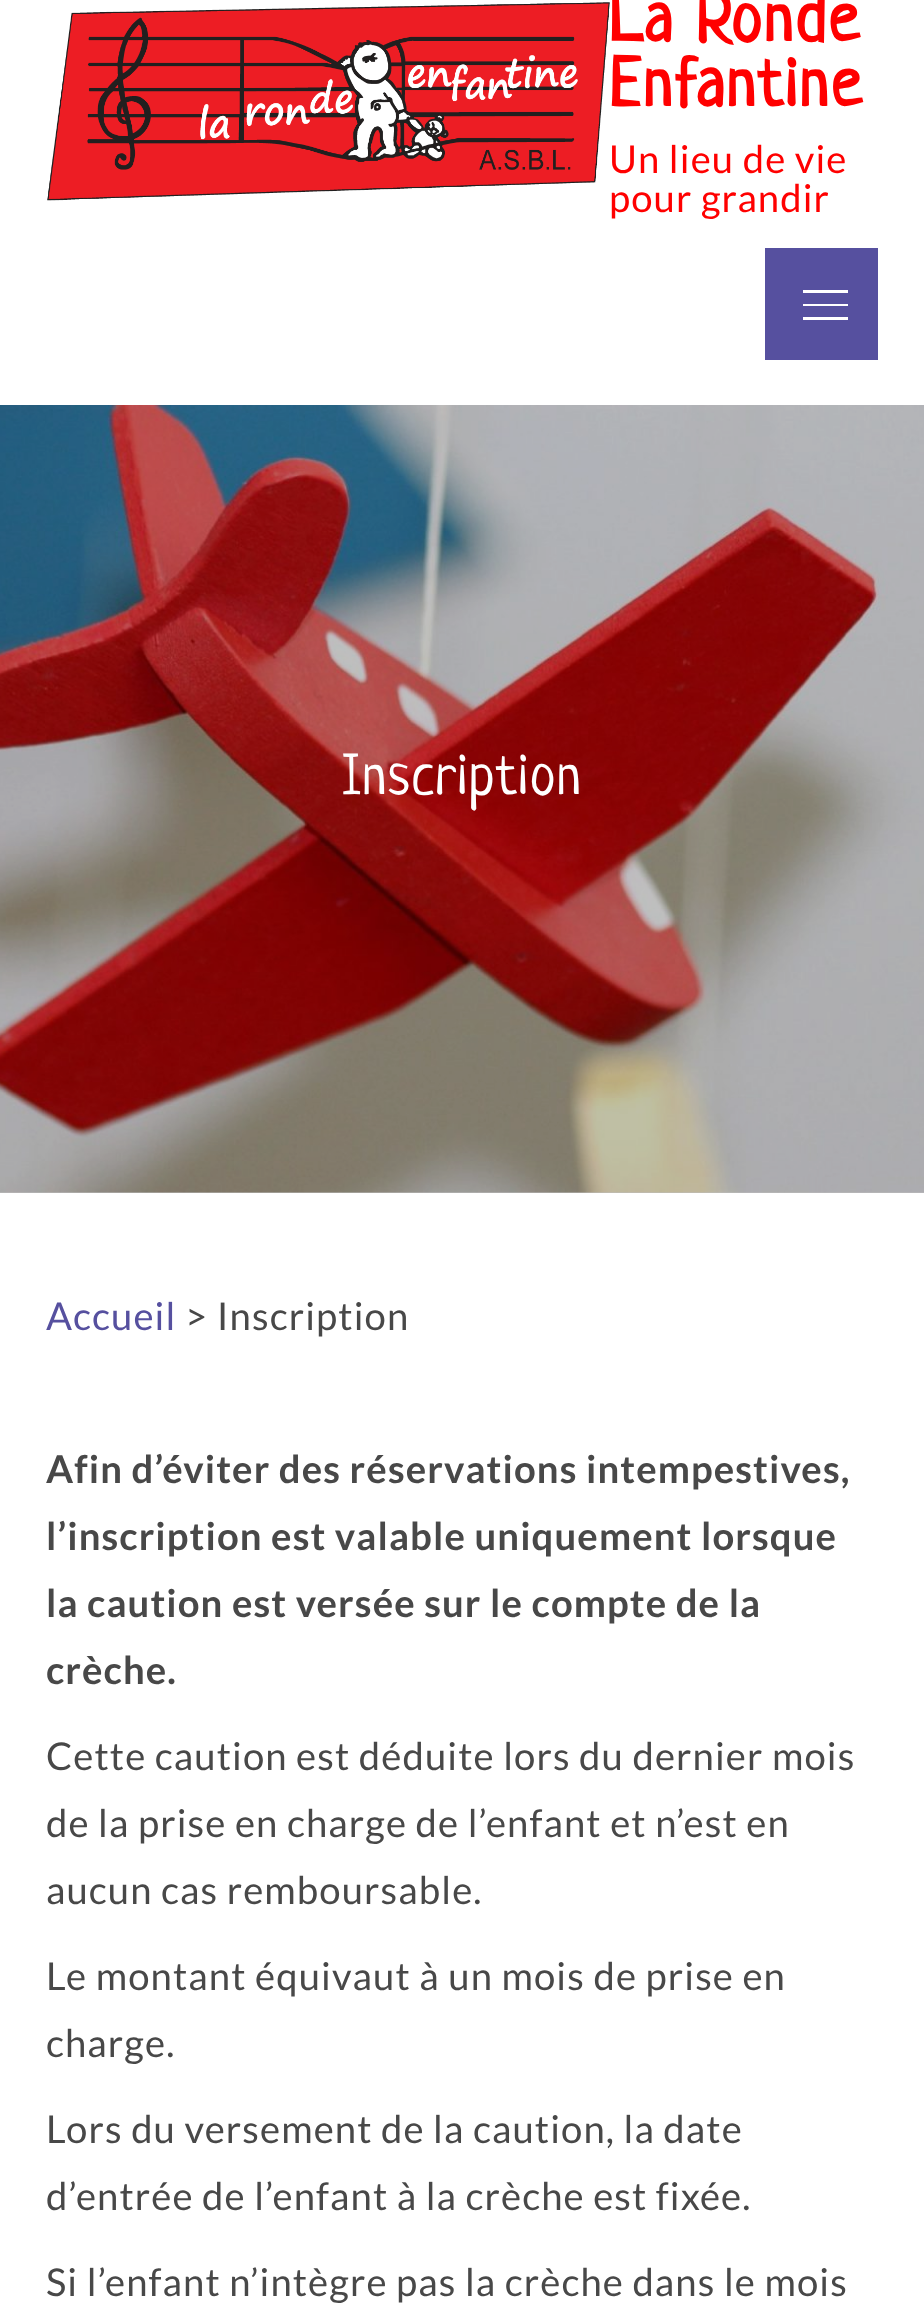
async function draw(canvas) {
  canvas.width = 924
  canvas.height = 2310
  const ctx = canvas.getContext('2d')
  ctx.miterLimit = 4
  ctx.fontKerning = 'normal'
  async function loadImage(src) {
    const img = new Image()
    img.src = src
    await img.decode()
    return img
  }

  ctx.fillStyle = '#fff'
  ctx.fillRect(0, 0, 924, 2310)
  ctx.fillStyle = '#bfbfbf'
  ctx.fillRect(0, 1192, 924, 1)
  ctx.drawImage(await loadImage('image0.png'), 47, 2, 563, 199)
  ctx.letterSpacing = '2.25px'
  ctx.font = 'bold 69.5px Neucha'
  ctx.fillStyle = '#f00'
  ctx.fillText('La Ronde', 609, 41)
  ctx.fillText('Enfantine', 609, 106)
  ctx.letterSpacing = '1.1px'
  ctx.font = '38.25px Lato'
  ctx.fillText('Un lieu de vie', 609, 173)
  ctx.fillText('pour grandir', 609, 212)
  ctx.fillStyle = '#56509f'
  ctx.fillRect(765, 248, 113, 112)
  ctx.fillStyle = '#fff'
  ctx.fillRect(803, 290, 45, 3)
  ctx.fillRect(803, 304, 45, 2)
  ctx.fillRect(803, 317, 45, 3)
  ctx.drawImage(await loadImage('image1.png'), 0, 405, 924, 788)
  ctx.font = '58.5px Neucha'
  ctx.fillText('Inscription', 342, 794)
  ctx.font = '38.25px Lato'
  ctx.fillStyle = '#56509f'
  ctx.fillText('Accueil', 46, 1330)
  ctx.fillStyle = '#484848'
  ctx.fillText('> Inscription', 185, 1330)
  ctx.font = 'bold 38.25px Lato'
  ctx.fillText('Afin d’éviter des réservations intempestives,', 46, 1483)
  ctx.fillText('l’inscription est valable uniquement lorsque', 46, 1550)
  ctx.fillText('la caution est versée sur le compte de la', 46, 1617)
  ctx.fillText('crèche.', 46, 1684)
  ctx.font = '38.25px Lato'
  ctx.fillText('Cette caution est déduite lors du dernier mois', 46, 1770)
  ctx.fillText('de la prise en charge de l’enfant et n’est en', 46, 1837)
  ctx.fillText('aucun cas remboursable.', 46, 1904)
  ctx.fillText('Le montant équivaut à un mois de prise en', 46, 1990)
  ctx.fillText('charge.', 46, 2057)
  ctx.fillText('Lors du versement de la caution, la date', 46, 2143)
  ctx.fillText('d’entrée de l’enfant à la crèche est fixée.', 46, 2210)
  ctx.fillText('Si l’enfant n’intègre pas la crèche dans le mois', 46, 2296)
}

draw(document.querySelector('canvas'))
